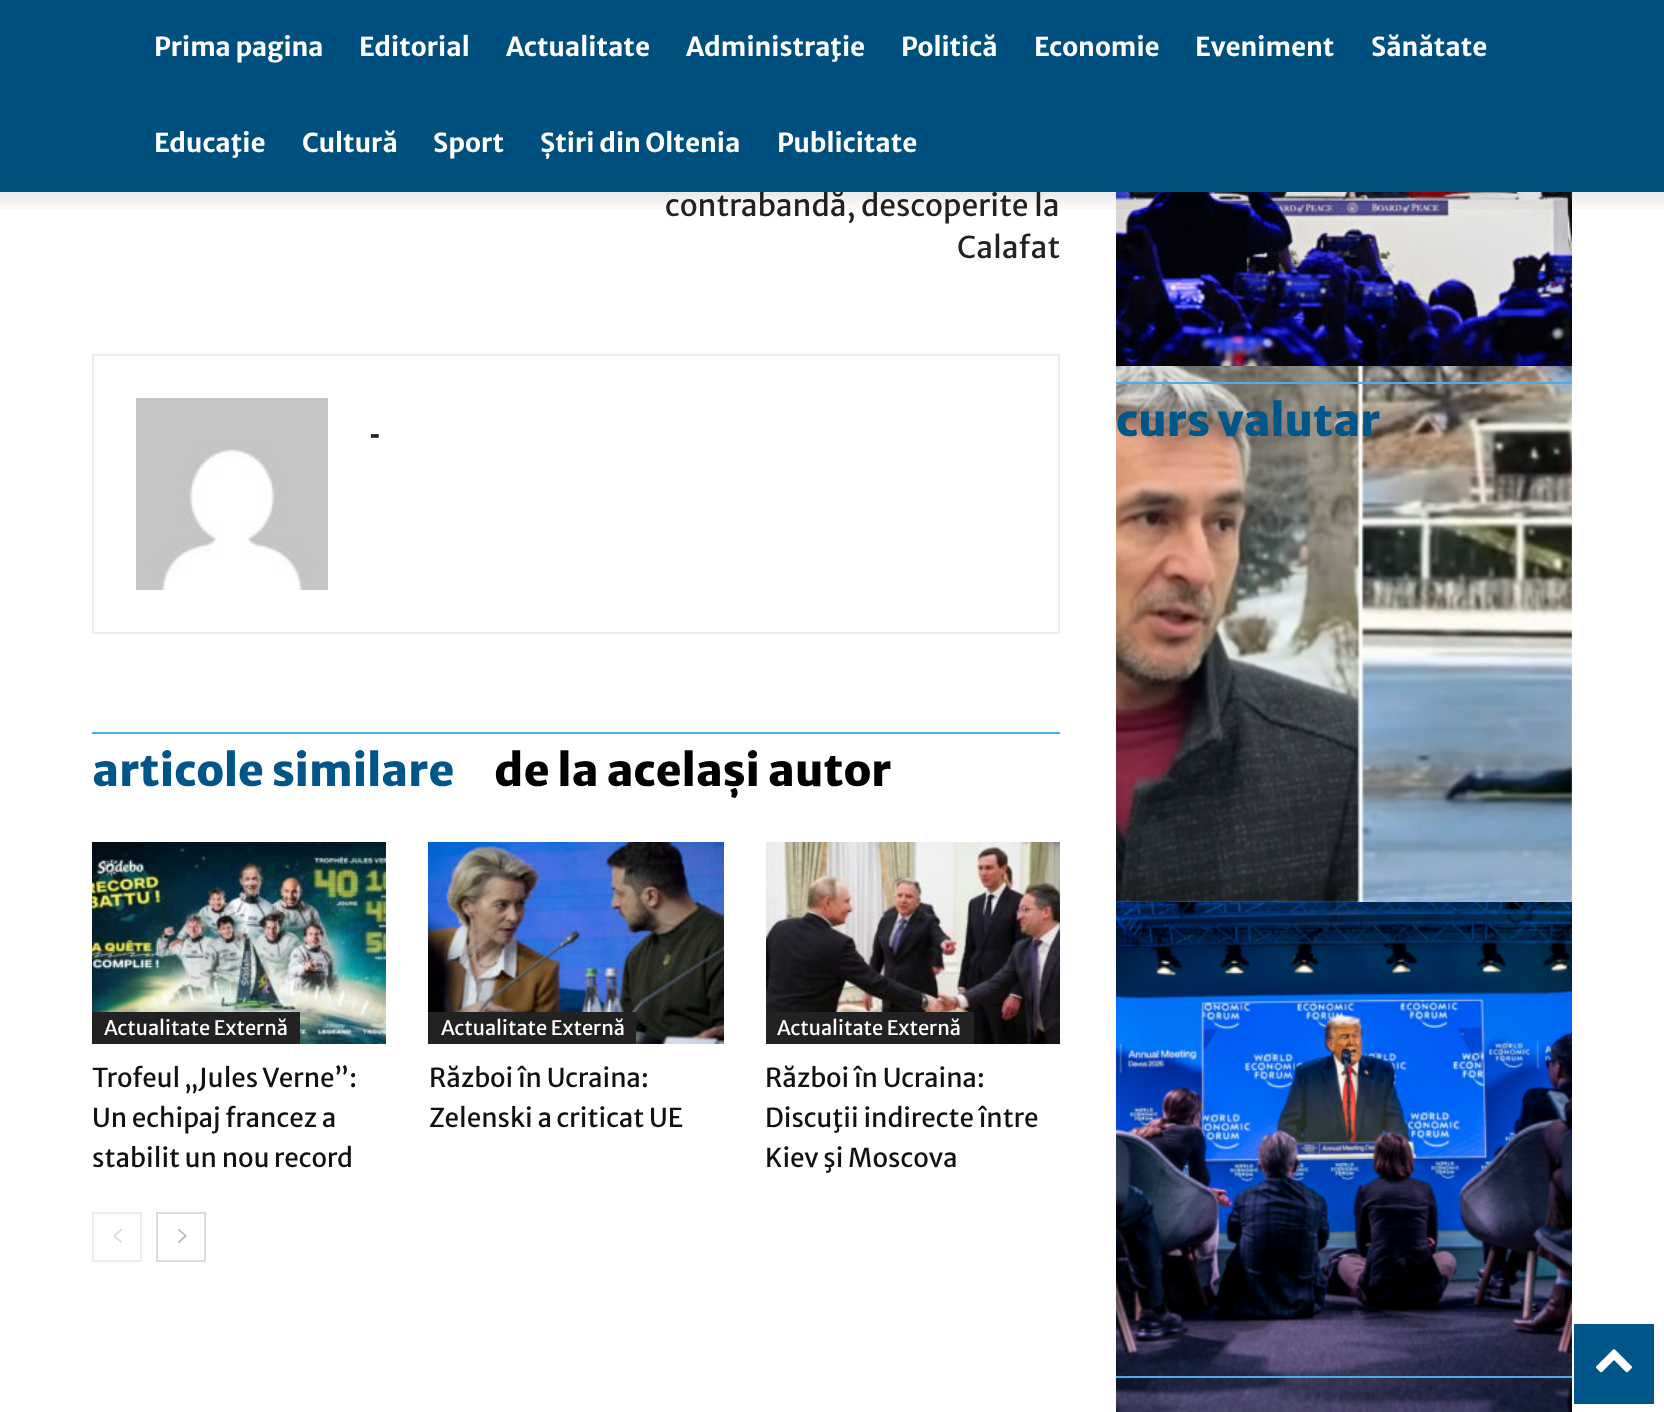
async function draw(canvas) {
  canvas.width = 1664
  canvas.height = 1412
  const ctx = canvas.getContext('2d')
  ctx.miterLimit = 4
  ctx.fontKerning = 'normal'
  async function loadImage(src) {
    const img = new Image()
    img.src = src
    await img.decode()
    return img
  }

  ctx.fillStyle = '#fff'
  ctx.fillRect(0, 0, 1664, 1412)
  ctx.font = '30px Merriweather Sans'
  ctx.fillStyle = '#222'
  ctx.fillText('contrabandă, descoperite la', 665, 216)
  ctx.fillStyle = '#00507f'
  ctx.fillRect(0, 0, 1664, 192)
  ctx.font = 'bold 26px Merriweather Sans'
  ctx.fillStyle = '#fff'
  ctx.fillText('Prima pagina', 154, 56)
  ctx.fillText('Editorial', 359, 56)
  ctx.fillText('Actualitate', 506, 56)
  ctx.fillText('Administraţie', 686, 56)
  ctx.fillText('Politică', 901, 56)
  ctx.fillText('Economie', 1034, 56)
  ctx.fillText('Eveniment', 1195, 56)
  ctx.fillText('Sănătate', 1371, 56)
  ctx.fillText('Educaţie', 154, 152)
  ctx.fillText('Cultură', 302, 152)
  ctx.fillText('Sport', 433, 152)
  ctx.fillText('Știri din Oltenia', 540, 152)
  ctx.fillText('Publicitate', 777, 152)
  ctx.drawImage(await loadImage('image7.png'), 1116, 192, 456, 174)
  ctx.drawImage(await loadImage('image0.png'), 0, 192, 1664, 17)
  ctx.font = '30px Merriweather Sans'
  ctx.fillStyle = '#222'
  ctx.fillText('Calafat', 957, 258)
  ctx.strokeStyle = '#ededed'
  ctx.lineWidth = 2
  ctx.strokeRect(93, 355, 966, 278)
  ctx.drawImage(await loadImage('image1.png'), 136, 398, 192, 192)
  ctx.font = 'bold 30px Open Sans'
  ctx.fillText('-', 370, 444)
  ctx.fillStyle = '#4facea'
  ctx.fillRect(92, 732, 968, 2)
  ctx.font = '800 44px Merriweather Sans'
  ctx.fillStyle = '#005689'
  ctx.fillText('articole similare', 92, 786)
  ctx.fillStyle = '#000'
  ctx.fillText('de la același autor', 494, 786)
  ctx.drawImage(await loadImage('image2.png'), 92, 842, 294, 202)
  ctx.fillStyle = '#222'
  ctx.fillRect(92, 1012, 208, 32)
  ctx.font = '20px Merriweather Sans'
  ctx.fillStyle = '#fff'
  ctx.fillText('Actualitate Externă', 104, 1035)
  ctx.font = '26px Merriweather Sans'
  ctx.fillStyle = '#111'
  ctx.fillText('Trofeul „Jules Verne”:', 92, 1087)
  ctx.fillText('Un echipaj francez a', 92, 1127)
  ctx.fillText('stabilit un nou record', 92, 1167)
  ctx.drawImage(await loadImage('image3.png'), 428, 842, 296, 202)
  ctx.fillStyle = '#222'
  ctx.fillRect(428, 1012, 208, 32)
  ctx.font = '20px Merriweather Sans'
  ctx.fillStyle = '#fff'
  ctx.fillText('Actualitate Externă', 441, 1035)
  ctx.font = '26px Merriweather Sans'
  ctx.fillStyle = '#111'
  ctx.fillText('Război în Ucraina:', 429, 1087)
  ctx.fillText('Zelenski a criticat UE', 429, 1127)
  ctx.drawImage(await loadImage('image4.png'), 766, 842, 294, 202)
  ctx.fillStyle = '#222'
  ctx.fillRect(766, 1012, 208, 32)
  ctx.font = '20px Merriweather Sans'
  ctx.fillStyle = '#fff'
  ctx.fillText('Actualitate Externă', 777, 1035)
  ctx.font = '26px Merriweather Sans'
  ctx.fillStyle = '#111'
  ctx.fillText('Război în Ucraina:', 765, 1087)
  ctx.fillText('Discuţii indirecte între', 765, 1127)
  ctx.fillText('Kiev şi Moscova', 765, 1167)
  ctx.strokeStyle = '#eee'
  ctx.strokeRect(93, 1213, 48, 48)
  ctx.drawImage(await loadImage('image5.png'), 113, 1229, 9, 14)
  ctx.strokeStyle = '#dcdcdc'
  ctx.strokeRect(157, 1213, 48, 48)
  ctx.drawImage(await loadImage('image6.png'), 178, 1229, 9, 14)
  ctx.strokeStyle = '#f2f2f2'
  ctx.strokeRect(1117, 493, 454, 804)
  ctx.drawImage(await loadImage('image10.png'), 1148, 900, 20, 2)
  ctx.drawImage(await loadImage('image8.png'), 1116, 366, 456, 536)
  ctx.drawImage(await loadImage('image9.png'), 1116, 902, 456, 510)
  ctx.fillStyle = '#4facea'
  ctx.fillRect(1116, 382, 456, 2)
  ctx.font = '800 44px Merriweather Sans'
  ctx.fillStyle = '#005689'
  ctx.fillText('curs valutar', 1116, 436)
  ctx.fillStyle = '#4facea'
  ctx.fillRect(1116, 1376, 456, 2)
  ctx.fillStyle = '#005689'
  ctx.fillRect(1574, 1324, 80, 80)
  ctx.drawImage(await loadImage('image11.png'), 1596, 1349, 36, 24)
}

draw(document.querySelector('canvas'))
